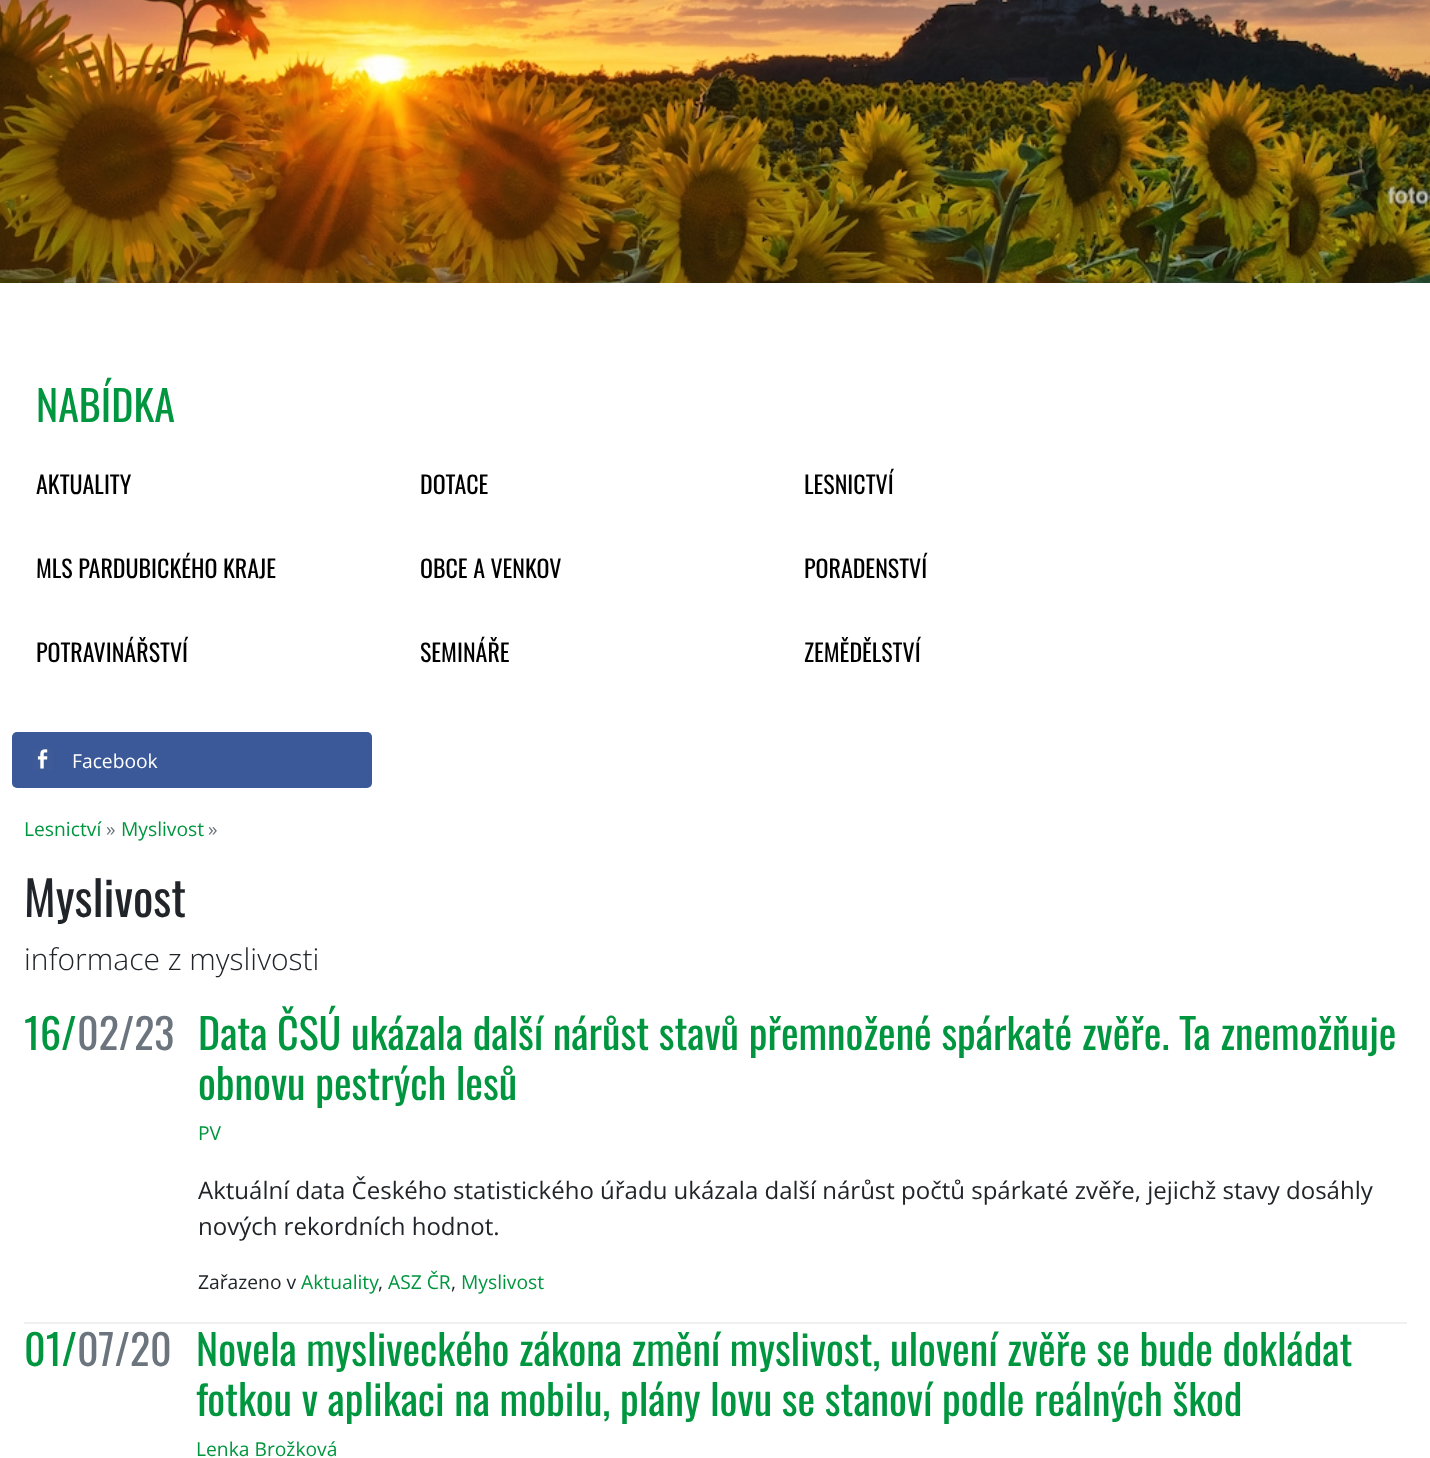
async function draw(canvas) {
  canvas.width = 1430
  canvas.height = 1458
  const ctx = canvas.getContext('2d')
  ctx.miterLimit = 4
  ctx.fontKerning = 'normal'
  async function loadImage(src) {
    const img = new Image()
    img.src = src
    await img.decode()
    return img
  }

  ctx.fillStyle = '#fff'
  ctx.fillRect(0, 0, 1430, 1458)
  ctx.drawImage(await loadImage('image0.png'), 0, 0, 1430, 283)
  ctx.font = '42px Oswald'
  ctx.fillStyle = '#00963f'
  ctx.fillText('NABÍDKA', 36, 422)
  ctx.font = '24px Oswald'
  ctx.fillStyle = '#000'
  ctx.fillText('AKTUALITY', 36, 494)
  ctx.fillText('DOTACE', 420, 494)
  ctx.fillText('LESNICTVÍ', 804, 494)
  ctx.fillText('MLS PARDUBICKÉHO KRAJE', 36, 578)
  ctx.fillText('OBCE A VENKOV', 420, 578)
  ctx.fillText('PORADENSTVÍ', 804, 578)
  ctx.fillText('POTRAVINÁŘSTVÍ', 36, 662)
  ctx.fillText('SEMINÁŘE', 420, 662)
  ctx.fillText('ZEMĚDĚLSTVÍ', 804, 662)
  ctx.fillStyle = '#3b5998'
  ctx.beginPath()
  ctx.roundRect(12, 732, 360, 56, 5)
  ctx.fill()
  ctx.fillStyle = '#3e5b98'
  ctx.fillRect(33, 749, 20, 21)
  ctx.drawImage(await loadImage('image1.png'), 37, 749, 11, 20)
  ctx.font = '19.25px Open Sans'
  ctx.fillStyle = '#fff'
  ctx.fillText('Facebook', 72, 768)
  ctx.fillStyle = '#00963f'
  ctx.fillText('Lesnictví', 24, 836)
  ctx.fillStyle = '#6c757d'
  ctx.fillText('»', 106, 836)
  ctx.fillStyle = '#00963f'
  ctx.fillText('Myslivost', 121, 836)
  ctx.fillStyle = '#6c757d'
  ctx.fillText('»', 208, 836)
  ctx.font = '48px Oswald'
  ctx.fillStyle = '#212529'
  ctx.fillText('Myslivost', 24, 917)
  ctx.font = '300 30px Open Sans'
  ctx.fillText('informace z myslivosti', 24, 970)
  ctx.font = '42px Oswald'
  ctx.fillStyle = '#00963f'
  ctx.fillText('16/', 24, 1050)
  ctx.fillStyle = '#6c757d'
  ctx.fillText('02/23', 77, 1050)
  ctx.fillStyle = '#00963f'
  ctx.fillText('Data ČSÚ ukázala další nárůst stavů přemnožené spárkaté zvěře. Ta znemožňuje', 198, 1050)
  ctx.fillText('obnovu pestrých lesů', 198, 1100)
  ctx.font = '19.25px Open Sans'
  ctx.fillText('PV', 198, 1140)
  ctx.font = '24px Open Sans'
  ctx.fillStyle = '#212529'
  ctx.fillText('Aktuální data Českého statistického úřadu ukázala další nárůst počtů spárkaté zvěře, jejichž stavy dosáhly', 198, 1199)
  ctx.fillText('nových rekordních hodnot.', 198, 1235)
  ctx.font = '19.25px Open Sans'
  ctx.fillText('Zařazeno v', 198, 1289)
  ctx.fillStyle = '#00963f'
  ctx.fillText('Aktuality', 301, 1289)
  ctx.fillStyle = '#212529'
  ctx.fillText(',', 378, 1289)
  ctx.fillStyle = '#00963f'
  ctx.fillText('ASZ ČR', 388, 1289)
  ctx.fillStyle = '#212529'
  ctx.fillText(',', 451, 1289)
  ctx.fillStyle = '#00963f'
  ctx.fillText('Myslivost', 461, 1289)
  ctx.fillStyle = '#f0f0f0'
  ctx.fillRect(24, 1322, 1383, 2)
  ctx.font = '42px Oswald'
  ctx.fillStyle = '#00963f'
  ctx.fillText('01/', 24, 1366)
  ctx.fillStyle = '#6c757d'
  ctx.fillText('07/20', 77, 1366)
  ctx.fillStyle = '#00963f'
  ctx.fillText('Novela mysliveckého zákona změní myslivost, ulovení zvěře se bude dokládat', 196, 1366)
  ctx.fillText('fotkou v aplikaci na mobilu, plány lovu se stanoví podle reálných škod', 196, 1416)
  ctx.font = '19.25px Open Sans'
  ctx.fillText('Lenka Brožková', 196, 1456)
}

draw(document.querySelector('canvas'))
